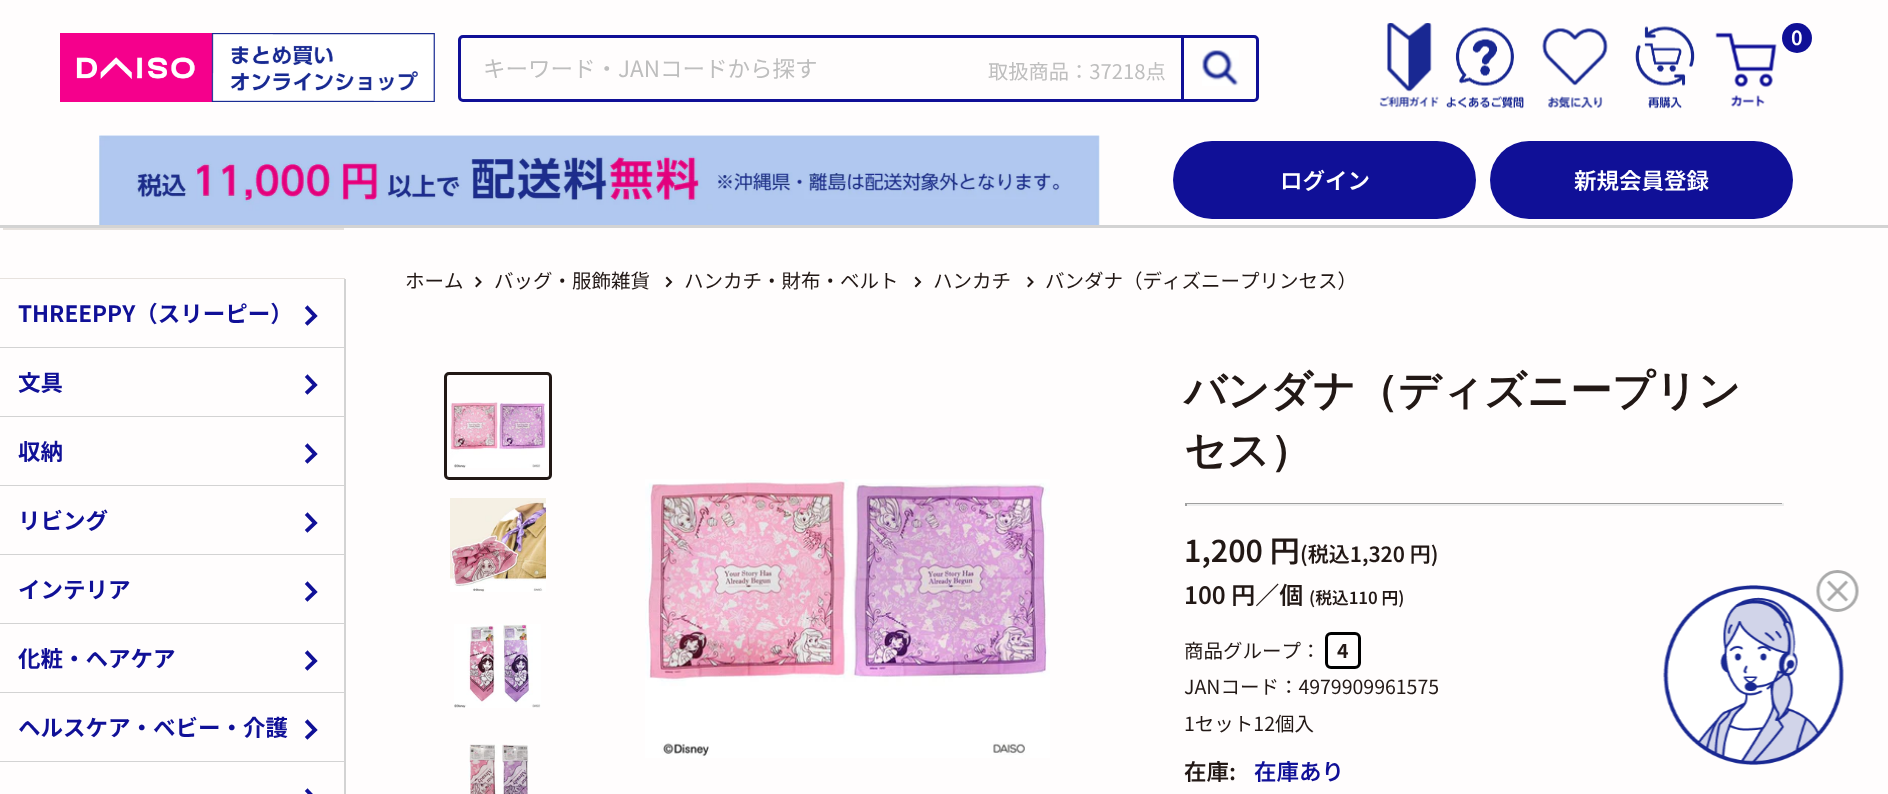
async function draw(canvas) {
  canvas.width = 1888
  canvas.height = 794
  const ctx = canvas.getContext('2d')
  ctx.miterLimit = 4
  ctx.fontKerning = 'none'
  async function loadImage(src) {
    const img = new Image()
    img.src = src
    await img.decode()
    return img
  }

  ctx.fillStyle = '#fffdfd'
  ctx.fillRect(0, 0, 1888, 794)
  ctx.drawImage(await loadImage('image0.png'), 60, 33, 375, 69)
  ctx.beginPath()
  ctx.roundRect(459.5, 36.5, 798, 64, 3.5)
  ctx.strokeStyle = '#101097'
  ctx.lineWidth = 3
  ctx.stroke()
  ctx.font = '22.5px Noto Sans JP'
  ctx.fillStyle = '#bebebe'
  ctx.fillText('キーワード・JANコードから探す', 483, 77)
  ctx.font = '20.25px Noto Sans JP'
  ctx.fillText('取扱商品：37218点', 988, 79)
  ctx.fillStyle = '#101097'
  ctx.fillRect(1181, 38, 3, 61)
  ctx.drawImage(await loadImage('image1.png'), 1202, 50, 37, 36)
  ctx.drawImage(await loadImage('image2.png'), 1379, 23, 60, 85)
  ctx.drawImage(await loadImage('image3.png'), 1446, 27, 78, 82)
  ctx.drawImage(await loadImage('image4.png'), 1542, 28, 66, 81)
  ctx.drawImage(await loadImage('image5.png'), 1635, 26, 60, 83)
  ctx.drawImage(await loadImage('image6.png'), 1715, 32, 62, 75)
  ctx.beginPath()
  ctx.arc(1797, 38, 15, 0, 2 * Math.PI)
  ctx.fill()
  ctx.font = '600 20px Noto Sans JP'
  ctx.fillStyle = '#fff'
  ctx.fillText('0', 1791, 45)
  ctx.fillStyle = '#d3d3d3'
  ctx.fillRect(0, 225, 1888, 3)
  ctx.drawImage(await loadImage('image7.png'), 99, 135, 1001, 90)
  ctx.fillStyle = '#101097'
  ctx.beginPath()
  ctx.roundRect(1173, 141, 303, 78, 39)
  ctx.fill()
  ctx.font = '600 22.5px Noto Sans JP'
  ctx.fillStyle = '#fff'
  ctx.fillText('ログイン', 1280, 189)
  ctx.fillStyle = '#101097'
  ctx.beginPath()
  ctx.roundRect(1490, 141, 303, 78, 39)
  ctx.fill()
  ctx.fillStyle = '#fff'
  ctx.fillText('新規会員登録', 1574, 189)
  ctx.fillStyle = '#e7e2de'
  ctx.fillRect(3, 228, 341, 2)
  ctx.fillRect(0, 278, 345, 1)
  ctx.fillStyle = '#d3d3d3'
  ctx.fillRect(344, 279, 2, 515)
  ctx.fillRect(0, 347, 345, 1)
  ctx.font = 'bold 22.5px Noto Sans JP'
  ctx.fillStyle = '#101097'
  ctx.fillText('THREEPPY（スリーピー）', 18, 322)
  ctx.beginPath()
  ctx.moveTo(307.5, 308)
  ctx.lineTo(315, 316)
  ctx.lineTo(307.5, 323)
  ctx.lineWidth = 3.8
  ctx.lineCap = 'square'
  ctx.stroke()
  ctx.fillStyle = '#d3d3d3'
  ctx.fillRect(0, 416, 345, 1)
  ctx.fillStyle = '#101097'
  ctx.fillText('文具', 18, 391)
  ctx.beginPath()
  ctx.moveTo(307.5, 377)
  ctx.lineTo(315, 385)
  ctx.lineTo(307.5, 392)
  ctx.stroke()
  ctx.fillStyle = '#d3d3d3'
  ctx.fillRect(0, 485, 345, 1)
  ctx.fillStyle = '#101097'
  ctx.fillText('収納', 18, 460)
  ctx.beginPath()
  ctx.moveTo(307.5, 446)
  ctx.lineTo(315, 454)
  ctx.lineTo(307.5, 461)
  ctx.stroke()
  ctx.fillStyle = '#d3d3d3'
  ctx.fillRect(0, 554, 345, 1)
  ctx.fillStyle = '#101097'
  ctx.fillText('リビング', 18, 529)
  ctx.beginPath()
  ctx.moveTo(307.5, 515)
  ctx.lineTo(315, 523)
  ctx.lineTo(307.5, 530)
  ctx.stroke()
  ctx.fillStyle = '#d3d3d3'
  ctx.fillRect(0, 623, 345, 1)
  ctx.fillStyle = '#101097'
  ctx.fillText('インテリア', 18, 598)
  ctx.beginPath()
  ctx.moveTo(307.5, 584)
  ctx.lineTo(315, 592)
  ctx.lineTo(307.5, 599)
  ctx.stroke()
  ctx.fillStyle = '#d3d3d3'
  ctx.fillRect(0, 692, 345, 1)
  ctx.fillStyle = '#101097'
  ctx.fillText('化粧・ヘアケア', 18, 667)
  ctx.beginPath()
  ctx.moveTo(307.5, 653)
  ctx.lineTo(315, 661)
  ctx.lineTo(307.5, 668)
  ctx.stroke()
  ctx.fillStyle = '#d3d3d3'
  ctx.fillRect(0, 761, 345, 1)
  ctx.fillStyle = '#101097'
  ctx.fillText('ヘルスケア・ベビー・介護', 18, 736)
  ctx.beginPath()
  ctx.moveTo(307.5, 722)
  ctx.lineTo(315, 730)
  ctx.lineTo(307.5, 737)
  ctx.stroke()
  ctx.beginPath()
  ctx.moveTo(307.5, 791)
  ctx.lineTo(315, 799)
  ctx.lineTo(307.5, 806)
  ctx.stroke()
  ctx.font = '19.5px Noto Sans JP'
  ctx.fillStyle = '#221815'
  ctx.fillText('ホーム', 405, 288)
  ctx.beginPath()
  ctx.moveTo(476.5, 278)
  ctx.lineTo(480.5, 282)
  ctx.lineTo(476.5, 286)
  ctx.strokeStyle = '#221815'
  ctx.lineWidth = 2
  ctx.stroke()
  ctx.fillText('バッグ・服飾雑貨', 494, 288)
  ctx.beginPath()
  ctx.moveTo(667, 278)
  ctx.lineTo(671, 282)
  ctx.lineTo(667, 286)
  ctx.stroke()
  ctx.fillText('ハンカチ・財布・ベルト', 684, 288)
  ctx.beginPath()
  ctx.moveTo(916, 278)
  ctx.lineTo(920, 282)
  ctx.lineTo(916, 286)
  ctx.stroke()
  ctx.fillText('ハンカチ', 933, 288)
  ctx.beginPath()
  ctx.moveTo(1028.5, 278)
  ctx.lineTo(1032.5, 282)
  ctx.lineTo(1028.5, 286)
  ctx.stroke()
  ctx.fillText('バンダナ（ディズニープリンセス）', 1045, 288)
  ctx.beginPath()
  ctx.roundRect(445.5, 373.5, 105, 105, 3.5)
  ctx.lineWidth = 3
  ctx.stroke()
  ctx.drawImage(await loadImage('image8.png'), 450, 402, 96, 66)
  ctx.drawImage(await loadImage('image9.png'), 450, 498, 96, 94)
  ctx.drawImage(await loadImage('image10.png'), 454, 624, 87, 84)
  ctx.drawImage(await loadImage('image11.png'), 468, 744, 61, 50)
  ctx.drawImage(await loadImage('image12.png'), 645, 479, 405, 279)
  ctx.font = 'bold 42px WenQuanYi Zen Hei'
  ctx.fillText('バンダナ（ディズニープリン', 1184, 405)
  ctx.fillText('セス）', 1184, 465)
  ctx.fillStyle = '#9f9f9f'
  ctx.fillRect(1185, 503, 599, 1)
  ctx.fillStyle = '#eee'
  ctx.fillRect(1782, 503, 2, 3)
  ctx.fillRect(1185, 504, 599, 2)
  ctx.fillStyle = '#9f9f9f'
  ctx.fillRect(1185, 503, 2, 3)
  ctx.font = '600 30px Noto Sans JP'
  ctx.fillStyle = '#221815'
  ctx.fillText('1,200 円', 1184, 562)
  ctx.font = '600 21px Noto Sans JP'
  ctx.fillText('(税込1,320 円)', 1300, 562)
  ctx.font = '600 24px Noto Sans JP'
  ctx.fillText('100 円／個', 1184, 604)
  ctx.font = '600 16.75px Noto Sans JP'
  ctx.fillText('(税込110 円)', 1309, 604)
  ctx.font = '19.5px Noto Sans JP'
  ctx.fillText('商品グループ：', 1184, 658)
  ctx.beginPath()
  ctx.roundRect(1326.5, 633.5, 33, 34, 4.5)
  ctx.strokeStyle = '#000'
  ctx.stroke()
  ctx.font = 'bold 19.5px Noto Sans JP'
  ctx.fillText('4', 1337, 658)
  ctx.font = '19.5px Noto Sans JP'
  ctx.fillText('JANコード：4979909961575', 1184, 694)
  ctx.fillText('1セット12個入', 1184, 731)
  ctx.font = '600 22.5px Noto Sans JP'
  ctx.fillText('在庫:', 1184, 780)
  ctx.fillStyle = '#101097'
  ctx.fillText('在庫あり', 1254, 780)
  ctx.drawImage(await loadImage('image13.png'), 1663, 570, 196, 195)
}

draw(document.querySelector('canvas'))
